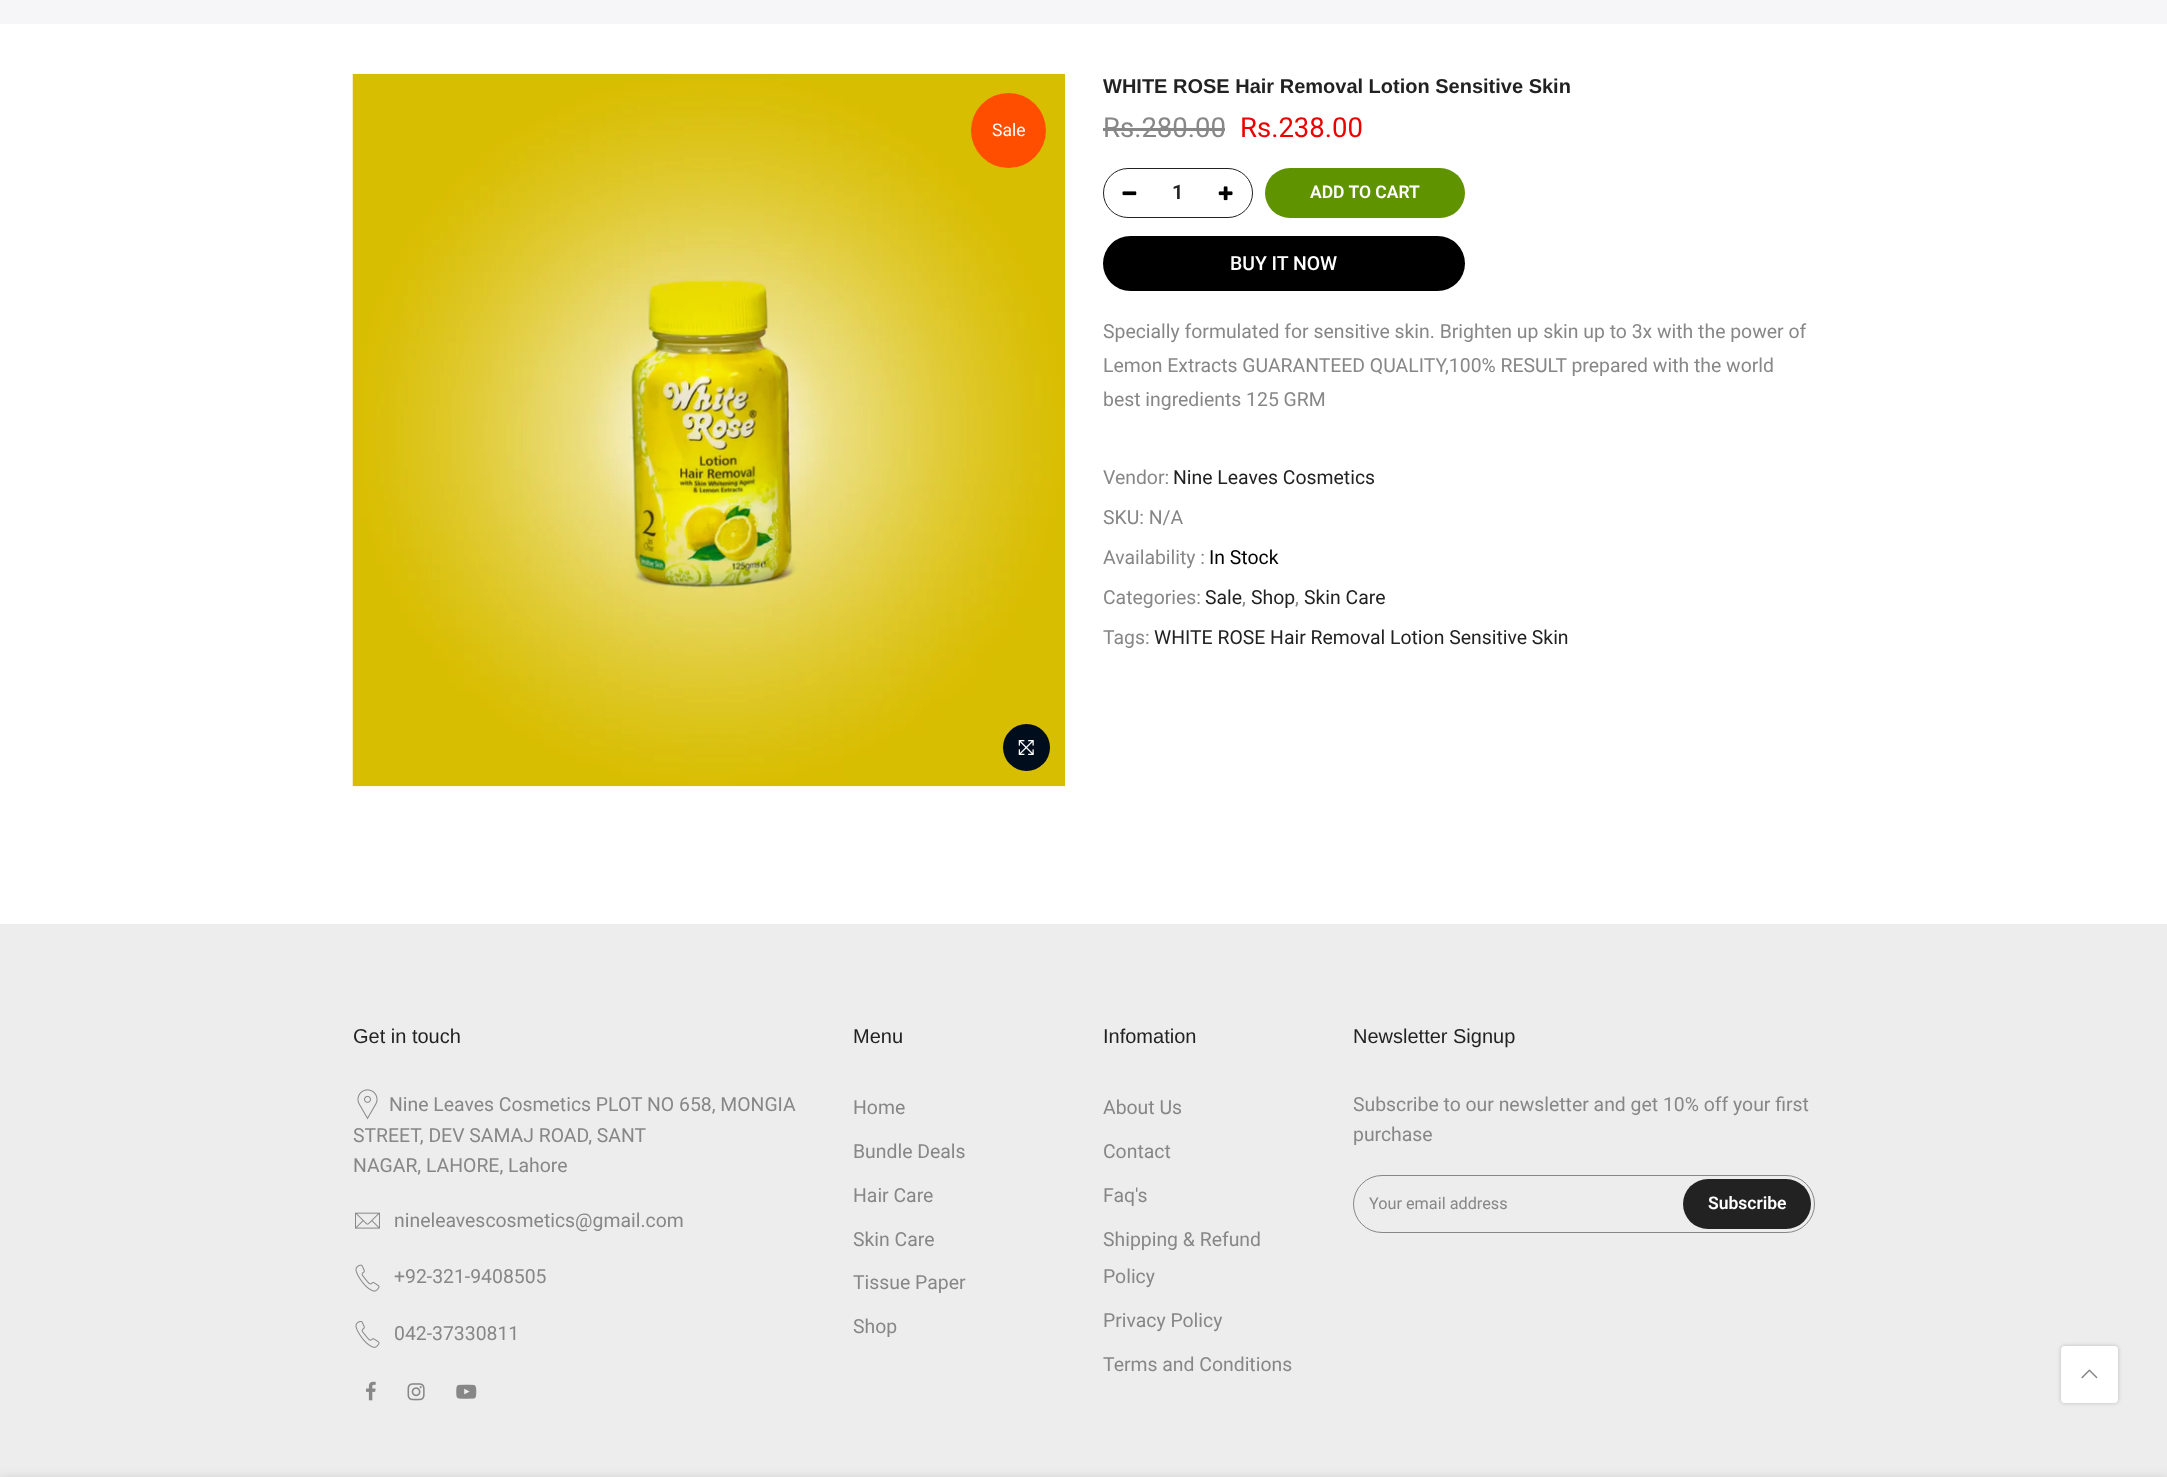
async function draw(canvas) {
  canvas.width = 2167
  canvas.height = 1477
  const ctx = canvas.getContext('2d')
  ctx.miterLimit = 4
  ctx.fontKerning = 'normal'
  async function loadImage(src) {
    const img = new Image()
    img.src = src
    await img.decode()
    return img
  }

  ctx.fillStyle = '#fff'
  ctx.fillRect(0, 0, 2167, 1477)
  ctx.fillStyle = '#f6f6f8'
  ctx.fillRect(0, 0, 2167, 24)
  ctx.drawImage(await loadImage('image0.png'), 352, 73, 713, 714)
  ctx.fillStyle = '#ff4e00'
  ctx.beginPath()
  ctx.arc(1008.5, 130.5, 37.5, 0, 2 * Math.PI)
  ctx.fill()
  ctx.font = '17.5px Roboto'
  ctx.fillStyle = '#fff'
  ctx.fillText('Sale', 992, 136)
  ctx.fillStyle = '#000d1d'
  ctx.beginPath()
  ctx.arc(1026.5, 747.5, 23.5, 0, 2 * Math.PI)
  ctx.fill()
  ctx.drawImage(await loadImage('image1.png'), 1018, 740, 16, 15)
  ctx.font = 'bold 20px Liberation Sans'
  ctx.fillStyle = '#222'
  ctx.fillText('WHITE ROSE Hair Removal Lotion Sensitive Skin', 1103, 93)
  ctx.font = '27.5px Roboto'
  ctx.fillStyle = '#878787'
  ctx.fillText('Rs.280.00', 1103, 137)
  ctx.fillRect(1103, 128, 122, 3)
  ctx.fillStyle = '#ec0101'
  ctx.fillText('Rs.238.00', 1240, 137)
  ctx.beginPath()
  ctx.roundRect(1103.5, 168.5, 149, 49, 24.5)
  ctx.strokeStyle = '#222'
  ctx.stroke()
  ctx.font = '600 20px Roboto'
  ctx.fillStyle = '#222'
  ctx.fillText('1', 1172, 199)
  ctx.drawImage(await loadImage('image2.png'), 1122, 191, 15, 5)
  ctx.drawImage(await loadImage('image3.png'), 1218, 186, 15, 15)
  ctx.fillStyle = '#609300'
  ctx.beginPath()
  ctx.roundRect(1265, 168, 200, 50, 25)
  ctx.fill()
  ctx.font = '600 17.5px Roboto'
  ctx.fillStyle = '#fff'
  ctx.fillText('ADD TO CART', 1310, 198)
  ctx.beginPath()
  ctx.moveTo(1357.5, 185)
  ctx.bezierCurveTo(1360, 182.5, 1363.5, 181.5, 1367, 182)
  ctx.bezierCurveTo(1379.5, 184.5, 1377.5, 203, 1365, 203)
  ctx.bezierCurveTo(1362, 203, 1359.5, 202, 1357.5, 200)
  ctx.strokeStyle = '#609300'
  ctx.lineWidth = 1.2
  ctx.stroke()
  ctx.fillStyle = '#000'
  ctx.beginPath()
  ctx.roundRect(1103, 236, 362, 55, 27.5)
  ctx.fill()
  ctx.font = '500 19.4px Roboto'
  ctx.fillStyle = '#fff'
  ctx.fillText('BUY IT NOW', 1230, 270)
  ctx.font = '19.4px Roboto'
  ctx.fillStyle = '#878787'
  ctx.fillText('Specially formulated for sensitive skin. Brighten up skin up to 3x with the power of', 1103, 338)
  ctx.fillText('Lemon Extracts GUARANTEED QUALITY,100% RESULT prepared with the world', 1103, 372)
  ctx.fillText('best ingredients 125 GRM', 1103, 406)
  ctx.fillText('Vendor:', 1103, 484)
  ctx.fillStyle = '#222'
  ctx.fillText('Nine Leaves Cosmetics', 1173, 484)
  ctx.fillStyle = '#878787'
  ctx.fillText('SKU: N/A', 1103, 524)
  ctx.fillText('Availability :', 1103, 564)
  ctx.fillStyle = '#000'
  ctx.fillText('In Stock', 1209, 564)
  ctx.fillStyle = '#878787'
  ctx.fillText('Categories:', 1103, 604)
  ctx.fillStyle = '#222'
  ctx.fillText('Sale', 1205, 604)
  ctx.fillStyle = '#878787'
  ctx.fillText(',', 1242, 604)
  ctx.fillStyle = '#222'
  ctx.fillText('Shop', 1251, 604)
  ctx.fillStyle = '#878787'
  ctx.fillText(',', 1295, 604)
  ctx.fillStyle = '#222'
  ctx.fillText('Skin Care', 1304, 604)
  ctx.fillStyle = '#878787'
  ctx.fillText('Tags:', 1103, 644)
  ctx.fillStyle = '#222'
  ctx.fillText('WHITE ROSE Hair Removal Lotion Sensitive Skin', 1154, 644)
  ctx.fillStyle = '#ededed'
  ctx.fillRect(0, 924, 2167, 553)
  ctx.font = '20px Liberation Sans'
  ctx.fillStyle = '#222'
  ctx.fillText('Get in touch', 353, 1043)
  ctx.drawImage(await loadImage('image4.png'), 357, 1089, 21, 31)
  ctx.font = '19.4px Roboto'
  ctx.fillStyle = '#878787'
  ctx.fillText('Nine Leaves Cosmetics PLOT NO 658, MONGIA', 389, 1111)
  ctx.fillText('STREET, DEV SAMAJ ROAD, SANT', 353, 1142)
  ctx.fillText('NAGAR, LAHORE, Lahore', 353, 1172)
  ctx.drawImage(await loadImage('image5.png'), 355, 1212, 25, 17)
  ctx.fillText('nineleavescosmetics@gmail.com', 394, 1227)
  ctx.drawImage(await loadImage('image6.png'), 355, 1264, 25, 28)
  ctx.fillText('+92-321-9408505', 394, 1283)
  ctx.drawImage(await loadImage('image7.png'), 355, 1321, 25, 27)
  ctx.fillText('042-37330811', 394, 1340)
  ctx.drawImage(await loadImage('image8.png'), 366, 1381, 10, 20)
  ctx.drawImage(await loadImage('image9.png'), 407, 1383, 18, 18)
  ctx.drawImage(await loadImage('image10.png'), 456, 1384, 21, 15)
  ctx.font = '20px Liberation Sans'
  ctx.fillStyle = '#222'
  ctx.fillText('Menu', 853, 1043)
  ctx.font = '19.4px Roboto'
  ctx.fillStyle = '#878787'
  ctx.fillText('Home', 853, 1114)
  ctx.fillText('Bundle Deals', 853, 1158)
  ctx.fillText('Hair Care', 853, 1202)
  ctx.fillText('Skin Care', 853, 1246)
  ctx.fillText('Tissue Paper', 853, 1289)
  ctx.fillText('Shop', 853, 1333)
  ctx.font = '20px Liberation Sans'
  ctx.fillStyle = '#222'
  ctx.fillText('Infomation', 1103, 1043)
  ctx.font = '19.4px Roboto'
  ctx.fillStyle = '#878787'
  ctx.fillText('About Us', 1103, 1114)
  ctx.fillText('Contact', 1103, 1158)
  ctx.fillText('Faq\'s', 1103, 1202)
  ctx.fillText('Shipping & Refund', 1103, 1246)
  ctx.fillText('Policy', 1103, 1283)
  ctx.fillText('Privacy Policy', 1103, 1327)
  ctx.fillText('Terms and Conditions', 1103, 1371)
  ctx.font = '20px Liberation Sans'
  ctx.fillStyle = '#222'
  ctx.fillText('Newsletter Signup', 1353, 1043)
  ctx.font = '19.4px Roboto'
  ctx.fillStyle = '#878787'
  ctx.fillText('Subscribe to our newsletter and get 10% off your first', 1353, 1111)
  ctx.fillText('purchase', 1353, 1141)
  ctx.beginPath()
  ctx.roundRect(1353.5, 1175.5, 461, 57, 28.5)
  ctx.strokeStyle = '#878787'
  ctx.lineWidth = 1
  ctx.stroke()
  ctx.font = '16.25px Roboto'
  ctx.fillText('Your email address', 1369, 1209)
  ctx.fillStyle = '#222'
  ctx.beginPath()
  ctx.roundRect(1683, 1179, 128, 50, 25)
  ctx.fill()
  ctx.font = '600 17.5px Roboto'
  ctx.fillStyle = '#fff'
  ctx.fillText('Subscribe', 1708, 1209)
  ctx.fillStyle = '#00000033'
  ctx.filter = 'blur(2px)'
  ctx.beginPath()
  ctx.roundRect(2061, 1346, 57, 57, 4)
  ctx.fill()
  ctx.filter = 'none'
  ctx.fillStyle = '#fff'
  ctx.beginPath()
  ctx.roundRect(2061, 1346, 57, 57, 4)
  ctx.fill()
  ctx.drawImage(await loadImage('image11.png'), 2081, 1369, 17, 10)
  ctx.fillStyle = '#0000001f'
  ctx.filter = 'blur(5.5px)'
  ctx.beginPath()
  ctx.rect(0, 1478, 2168, 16)
  ctx.fill()
  ctx.filter = 'none'
}

draw(document.querySelector('canvas'))
